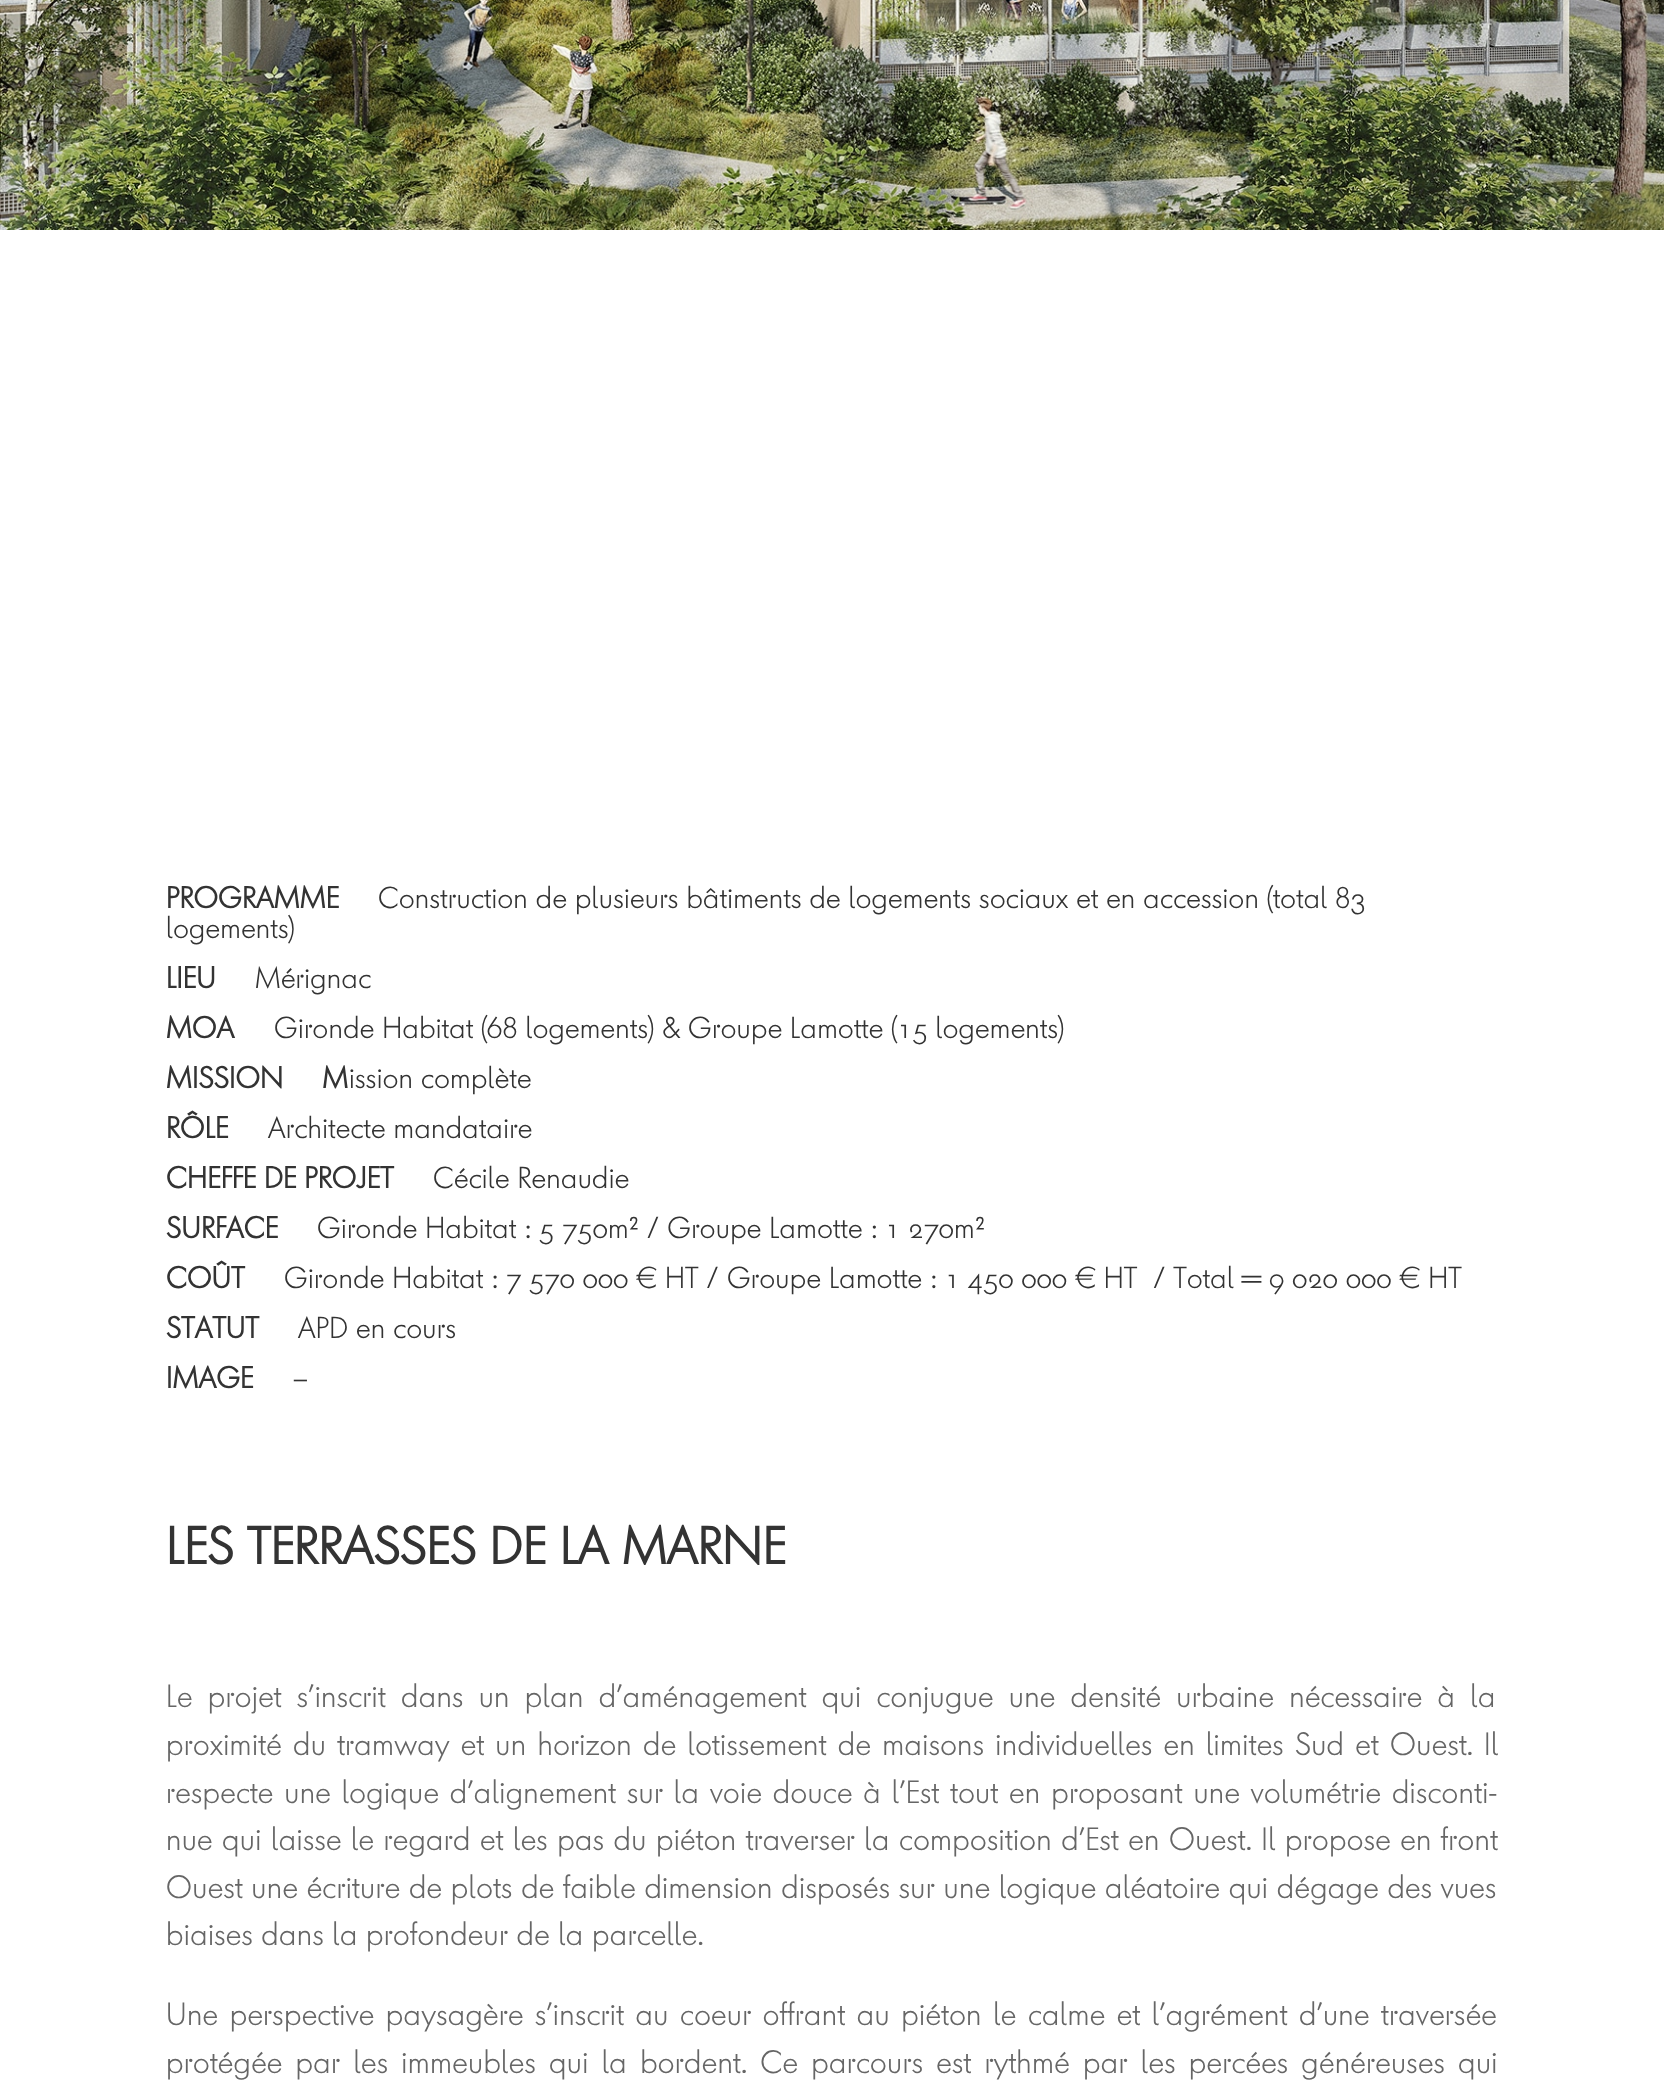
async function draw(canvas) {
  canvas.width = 1664
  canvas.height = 2080
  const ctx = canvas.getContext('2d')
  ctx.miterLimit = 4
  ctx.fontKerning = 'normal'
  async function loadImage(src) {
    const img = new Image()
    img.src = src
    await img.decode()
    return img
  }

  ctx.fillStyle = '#fff'
  ctx.fillRect(0, 0, 1664, 2080)
  ctx.drawImage(await loadImage('image0.png'), 0, 0, 1664, 230)
  ctx.font = 'bold 30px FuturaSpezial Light'
  ctx.fillStyle = '#333'
  ctx.fillText('PROGRAMME', 166, 908)
  ctx.font = '300 30px FuturaSpezial Light'
  ctx.fillText('Construction de plusieurs bâtiments de logements sociaux et en accession (total 83', 378, 908)
  ctx.fillText('logements)', 166, 938)
  ctx.font = 'bold 30px FuturaSpezial Light'
  ctx.fillText('LIEU', 166, 988)
  ctx.font = '300 30px FuturaSpezial Light'
  ctx.fillText('Mérignac', 255, 988)
  ctx.font = 'bold 30px FuturaSpezial Light'
  ctx.fillText('MOA', 166, 1038)
  ctx.font = '300 30px FuturaSpezial Light'
  ctx.fillText('Gironde Habitat (68 logements) & Groupe Lamotte (15 logements)', 274, 1038)
  ctx.font = 'bold 30px FuturaSpezial Light'
  ctx.fillText('MISSION     M', 166, 1088)
  ctx.font = '300 30px FuturaSpezial Light'
  ctx.fillText('ission complète', 349, 1088)
  ctx.font = 'bold 30px FuturaSpezial Light'
  ctx.fillText('RÔLE', 166, 1138)
  ctx.font = '300 30px FuturaSpezial Light'
  ctx.fillText('Architecte mandataire', 268, 1138)
  ctx.font = 'bold 30px FuturaSpezial Light'
  ctx.fillText('CHEFFE DE PROJET', 166, 1188)
  ctx.font = '300 30px FuturaSpezial Light'
  ctx.fillText('Cécile Renaudie', 433, 1188)
  ctx.font = 'bold 30px FuturaSpezial Light'
  ctx.fillText('SURFACE', 166, 1238)
  ctx.font = '300 30px FuturaSpezial Light'
  ctx.fillText('Gironde Habitat : 5 750m² / Groupe Lamotte : 1 270m²', 317, 1238)
  ctx.font = 'bold 30px FuturaSpezial Light'
  ctx.fillText('COÛT', 166, 1288)
  ctx.font = '300 30px FuturaSpezial Light'
  ctx.fillText('Gironde Habitat : 7 570 000 € HT / Groupe Lamotte : 1 450 000 € HT  / Total = 9 020 000 € HT', 284, 1288)
  ctx.font = 'bold 30px FuturaSpezial Light'
  ctx.fillText('STATUT', 166, 1338)
  ctx.font = '300 30px FuturaSpezial Light'
  ctx.fillText('APD en cours', 298, 1338)
  ctx.font = 'bold 30px FuturaSpezial Light'
  ctx.fillText('IMAGE', 166, 1388)
  ctx.font = '300 30px FuturaSpezial Light'
  ctx.fillText('–', 293, 1388)
  ctx.font = 'bold 52px FuturaSpezial Light'
  ctx.fillText('LES TERRASSES DE LA MARNE', 166, 1564)
  ctx.wordSpacing = '6.75px'
  ctx.font = '300 32px FuturaSpezial Light'
  ctx.fillStyle = '#666'
  ctx.fillText('Le projet s’inscrit dans un plan d’aménagement qui conjugue une densité urbaine nécessaire à la', 166, 1707)
  ctx.wordSpacing = '2.75px'
  ctx.fillText('proximité du tramway et un horizon de lotissement de maisons individuelles en limites Sud et Ouest. Il', 166, 1755)
  ctx.wordSpacing = '2.4px'
  ctx.fillText('respecte une logique d’alignement sur la voie douce à l’Est tout en proposant une volumétrie disconti-', 166, 1803)
  ctx.wordSpacing = '1px'
  ctx.fillText('nue qui laisse le regard et les pas du piéton traverser la composition d’Est en Ouest. Il propose en front', 166, 1850)
  ctx.wordSpacing = '0.25px'
  ctx.fillText('Ouest une écriture de plots de faible dimension disposés sur une logique aléatoire qui dégage des vues', 166, 1898)
  ctx.wordSpacing = '0px'
  ctx.fillText('biaises dans la profondeur de la parcelle.', 166, 1945)
  ctx.wordSpacing = '3.1px'
  ctx.fillText('Une perspective paysagère s’inscrit au coeur offrant au piéton le calme et l’agrément d’une traversée', 166, 2025)
  ctx.wordSpacing = '4.75px'
  ctx.fillText('protégée par les immeubles qui la bordent. Ce parcours est rythmé par les percées généreuses qui', 166, 2073)
}

draw(document.querySelector('canvas'))
